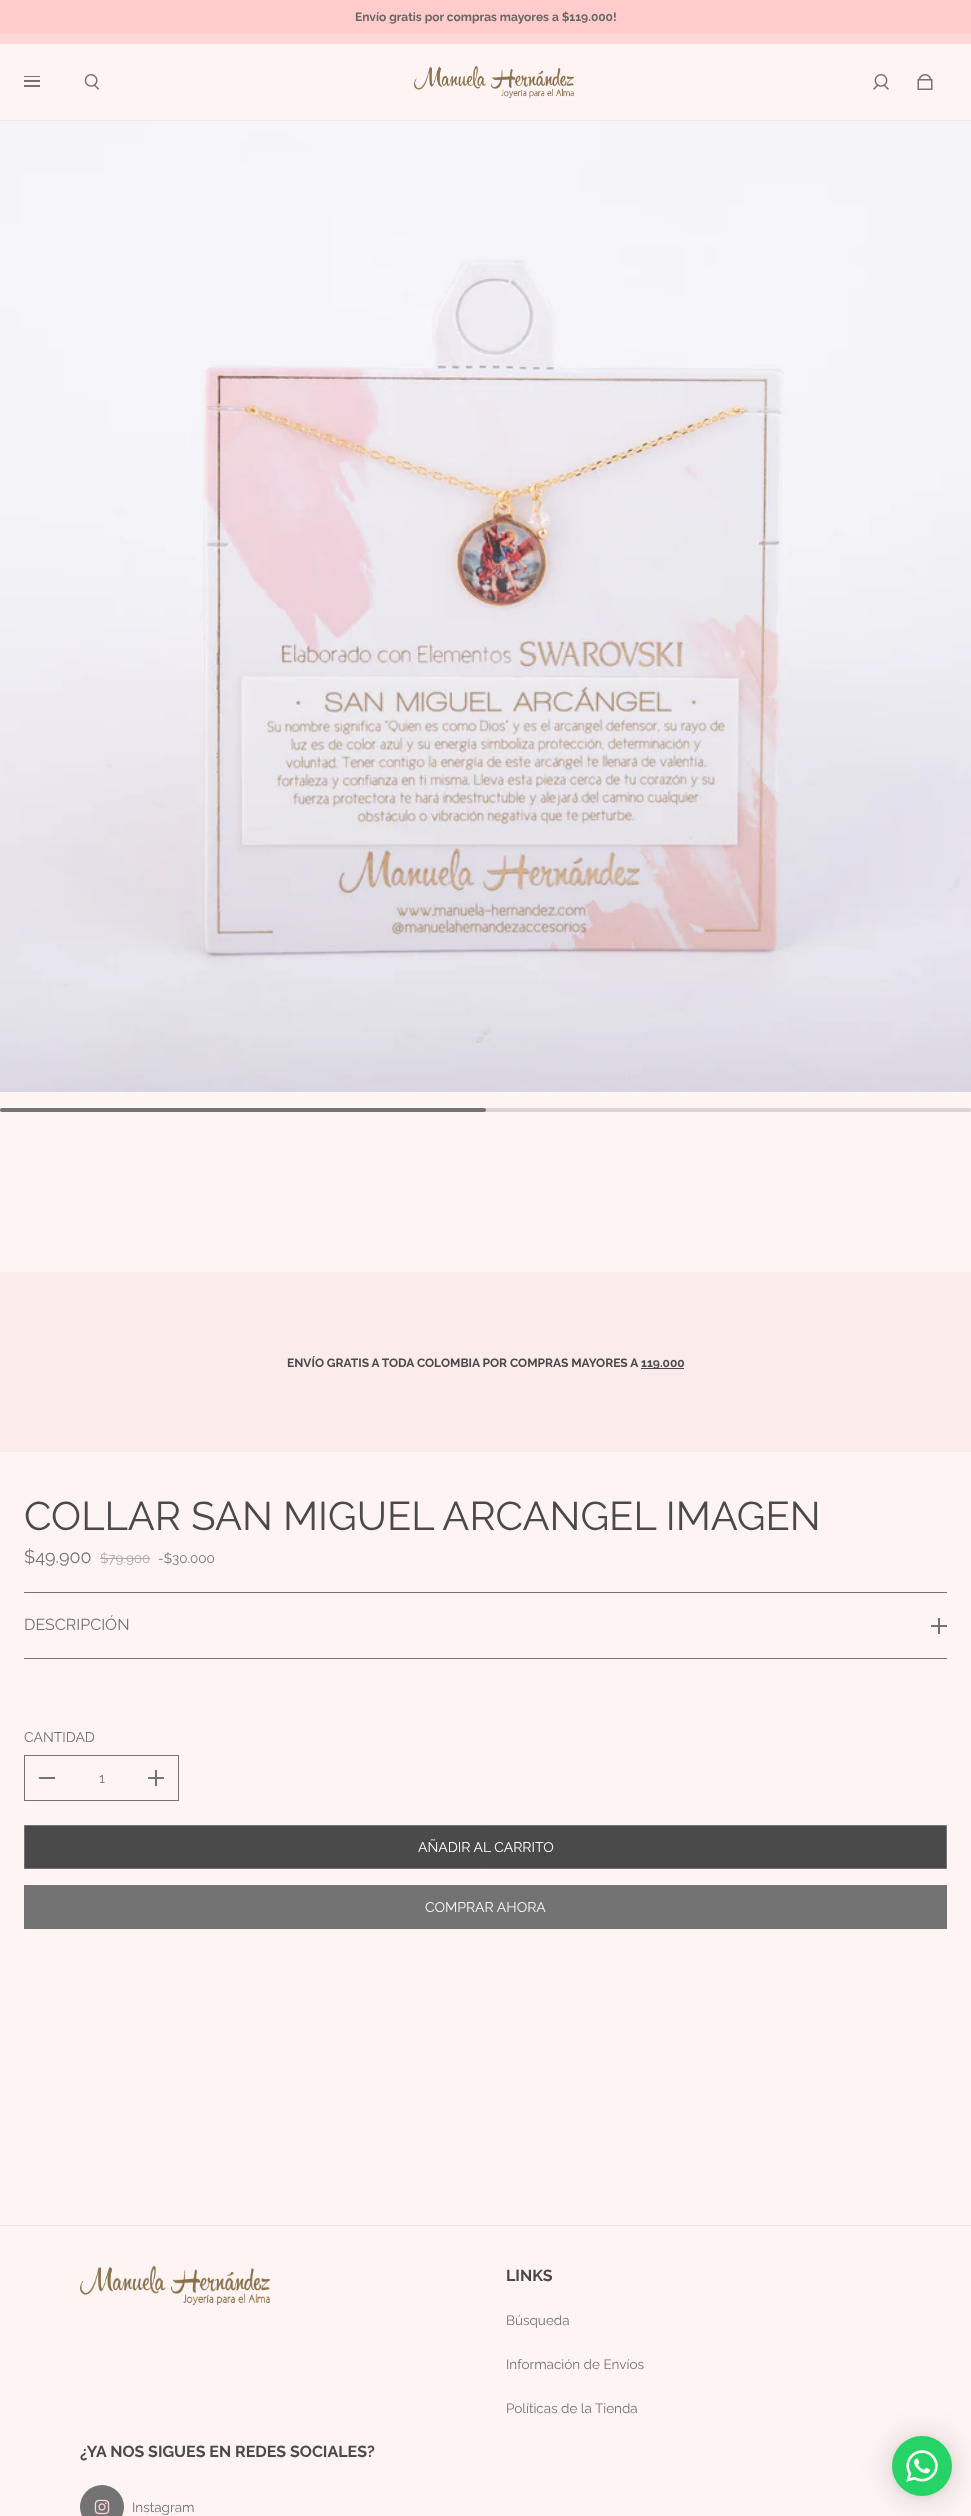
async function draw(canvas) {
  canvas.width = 971
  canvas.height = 2516
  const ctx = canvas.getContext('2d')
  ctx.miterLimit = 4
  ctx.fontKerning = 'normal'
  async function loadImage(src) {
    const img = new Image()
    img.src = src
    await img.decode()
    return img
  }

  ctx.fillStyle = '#fff4f4'
  ctx.fillRect(0, 0, 971, 2516)
  ctx.fillStyle = '#ffcbcb'
  ctx.fillRect(0, 0, 971, 34)
  ctx.font = 'bold 12px Raleway'
  ctx.fillStyle = '#686868'
  ctx.fillText('Envío gratis por compras mayores a $119.000!', 355, 21)
  ctx.fillStyle = '#ffd8d8'
  ctx.fillRect(0, 34, 971, 10)
  ctx.fillStyle = '#f1e7e7'
  ctx.fillRect(0, 120, 971, 1)
  ctx.fillStyle = '#737373'
  ctx.fillRect(24, 76, 16, 1)
  ctx.fillRect(24, 80, 16, 2)
  ctx.fillRect(24, 85, 16, 2)
  ctx.drawImage(await loadImage('image0.png'), 84, 74, 16, 16)
  ctx.drawImage(await loadImage('image1.png'), 414, 66, 160, 32)
  ctx.drawImage(await loadImage('image2.png'), 873, 74, 16, 16)
  ctx.drawImage(await loadImage('image3.png'), 917, 74, 16, 16)
  ctx.drawImage(await loadImage('image4.png'), 0, 121, 971, 971)
  ctx.fillStyle = '#dcd4d4'
  ctx.beginPath()
  ctx.roundRect(0, 1108, 971, 4, 2)
  ctx.fill()
  ctx.fillStyle = '#737373'
  ctx.beginPath()
  ctx.roundRect(0, 1108, 486, 4, 2)
  ctx.fill()
  ctx.fillStyle = '#fbebeb'
  ctx.fillRect(0, 1272, 971, 180)
  ctx.fillStyle = '#4b4a4a'
  ctx.fillText('ENVÍO GRATIS A TODA COLOMBIA POR COMPRAS MAYORES A', 287, 1367)
  ctx.fillRect(641, 1368, 43, 1)
  ctx.fillText('119.000', 641, 1367)
  ctx.font = '100 40px Raleway'
  ctx.fillText('COLLAR SAN MIGUEL ARCANGEL IMAGEN', 24, 1530)
  ctx.font = '100 18px Raleway'
  ctx.fillStyle = '#737373'
  ctx.fillText('$49.900', 24, 1563)
  ctx.font = '100 13.5px Raleway'
  ctx.fillStyle = '#aba7a7'
  ctx.fillText('$79.900', 100, 1563)
  ctx.fillRect(100, 1558, 50, 1)
  ctx.fillStyle = '#737373'
  ctx.fillText('-$30.000', 158, 1563)
  ctx.fillRect(24, 1592, 923, 1)
  ctx.fillRect(24, 1658, 923, 1)
  ctx.font = '100 16px Raleway'
  ctx.fillText('DESCRIPCIÓN', 24, 1630)
  ctx.fillRect(931, 1625, 16, 2)
  ctx.fillRect(938, 1618, 2, 16)
  ctx.font = '100 14px Raleway'
  ctx.fillText('CANTIDAD', 24, 1742)
  ctx.strokeStyle = '#737373'
  ctx.strokeRect(24.5, 1755.5, 154, 45)
  ctx.fillRect(39, 1777, 16, 2)
  ctx.fillText('1', 99, 1783)
  ctx.fillRect(148, 1777, 16, 2)
  ctx.fillRect(155, 1770, 2, 16)
  ctx.fillStyle = '#4b4a4a'
  ctx.beginPath()
  ctx.rect(24.5, 1825.5, 922, 43)
  ctx.fill()
  ctx.stroke()
  ctx.fillStyle = '#fff'
  ctx.fillText('AÑADIR AL CARRITO', 418, 1852)
  ctx.strokeRect(24.5, 1885.5, 922, 43)
  ctx.fillStyle = '#737373'
  ctx.fillRect(25, 1886, 921, 42)
  ctx.fillStyle = '#fff4f4'
  ctx.fillText('COMPRAR AHORA', 425, 1912)
  ctx.fillStyle = '#f1e7e7'
  ctx.fillRect(0, 2225, 971, 1)
  ctx.drawImage(await loadImage('image5.png'), 80, 2266, 190, 39)
  ctx.font = 'bold 16px Raleway'
  ctx.fillStyle = '#4b4a4a'
  ctx.fillText('LINKS', 506, 2281)
  ctx.font = '100 13.5px Raleway'
  ctx.fillStyle = '#737373'
  ctx.fillText('Búsqueda', 506, 2325)
  ctx.fillText('Información de Envíos', 506, 2369)
  ctx.fillText('Políticas de la Tienda', 506, 2413)
  ctx.font = 'bold 16px Raleway'
  ctx.fillStyle = '#4b4a4a'
  ctx.fillText('¿YA NOS SIGUES EN REDES SOCIALES?', 80, 2457)
  ctx.fillStyle = '#737373'
  ctx.beginPath()
  ctx.arc(102, 2507, 22, 0, 2 * Math.PI)
  ctx.fill()
  ctx.drawImage(await loadImage('image6.png'), 94, 2499, 16, 16)
  ctx.font = '100 13.5px Raleway'
  ctx.fillText('Instagram', 132, 2512)
  ctx.fillStyle = '#00000029'
  ctx.filter = 'blur(16px)'
  ctx.beginPath()
  ctx.roundRect(892, 2438, 60, 60, 30)
  ctx.fill()
  ctx.filter = 'none'
  ctx.fillStyle = '#0000000f'
  ctx.filter = 'blur(3px)'
  ctx.beginPath()
  ctx.roundRect(892, 2437, 60, 60, 30)
  ctx.fill()
  ctx.filter = 'none'
  ctx.fillStyle = '#25d366'
  ctx.beginPath()
  ctx.arc(922, 2466, 30, 0, 2 * Math.PI)
  ctx.fill()
  ctx.drawImage(await loadImage('image7.png'), 906, 2450, 32, 32)
}

draw(document.querySelector('canvas'))
